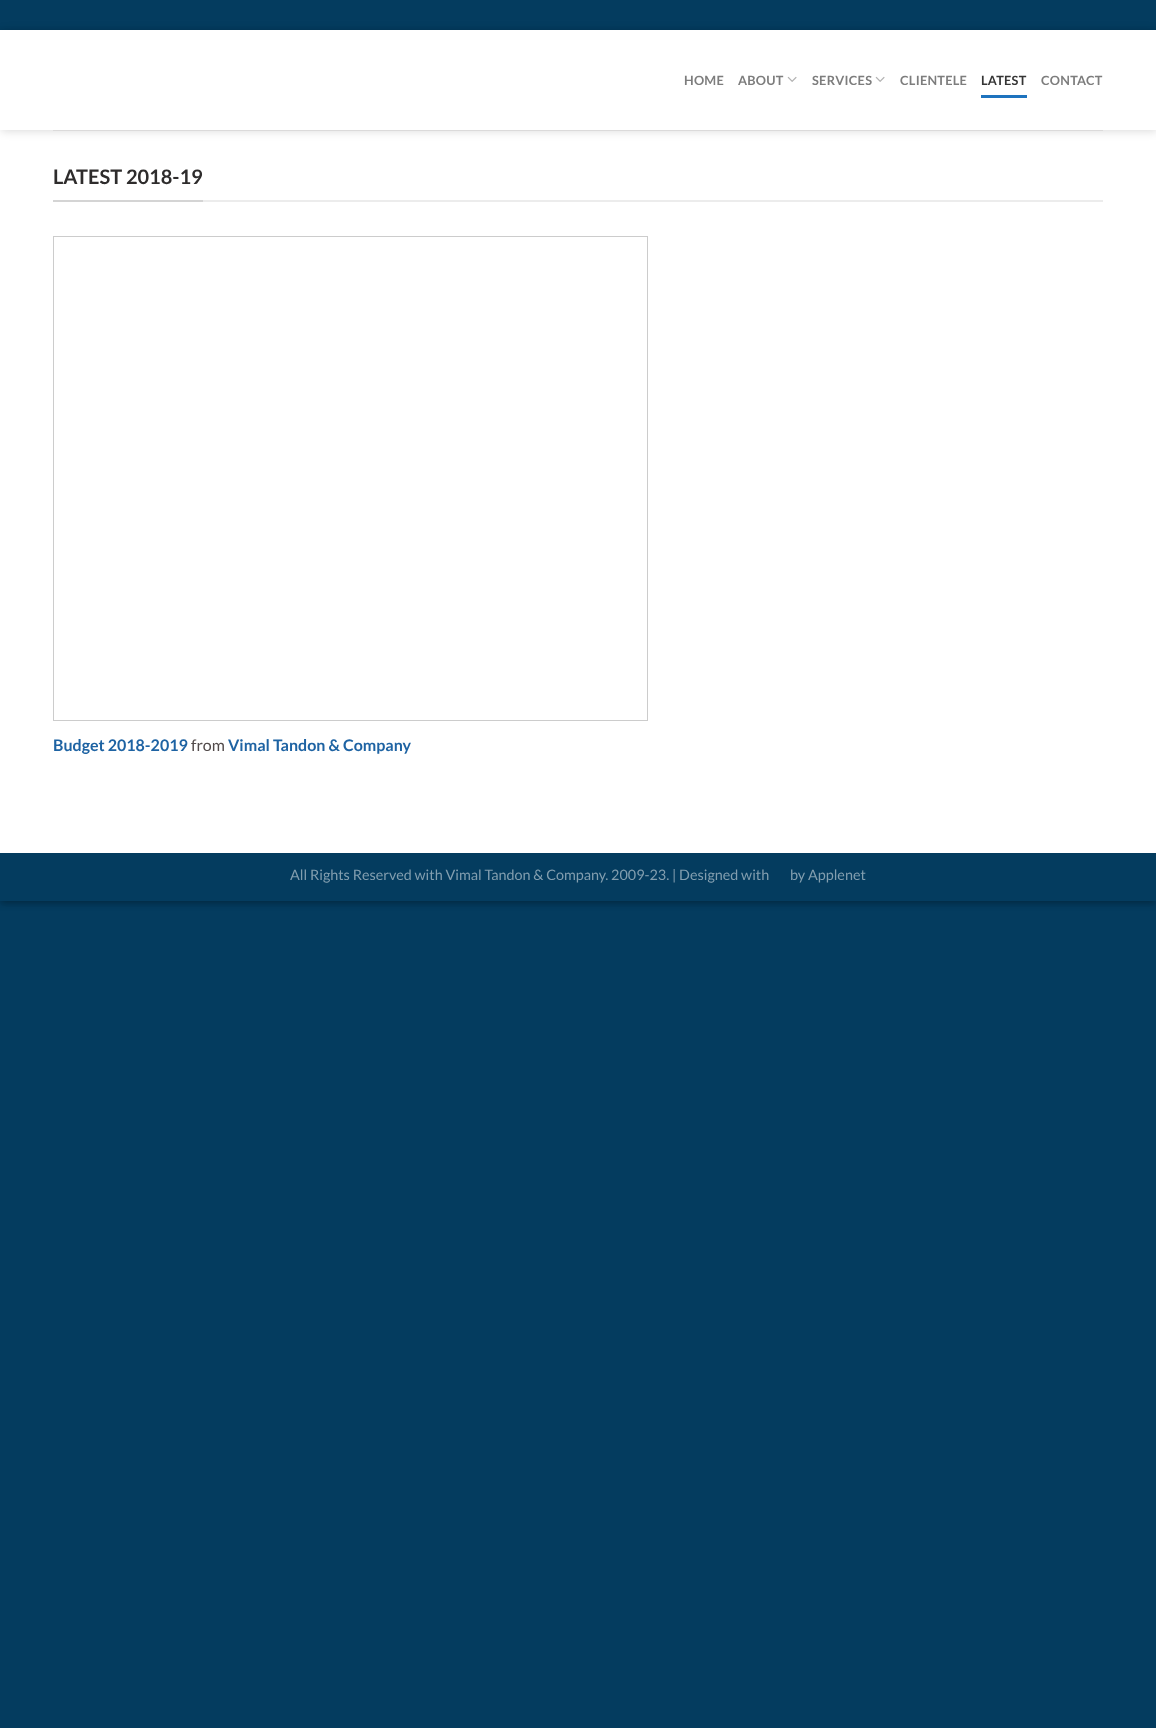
async function draw(canvas) {
  canvas.width = 1156
  canvas.height = 1728
  const ctx = canvas.getContext('2d')
  ctx.miterLimit = 4
  ctx.fontKerning = 'normal'
  async function loadImage(src) {
    const img = new Image()
    img.src = src
    await img.decode()
    return img
  }

  ctx.fillStyle = '#043c5f'
  ctx.fillRect(0, 0, 1156, 1728)
  ctx.fillStyle = '#0000003b'
  ctx.filter = 'blur(3px)'
  ctx.beginPath()
  ctx.rect(0, 33, 1156, 871)
  ctx.fill()
  ctx.filter = 'none'
  ctx.fillStyle = '#00000029'
  ctx.filter = 'blur(3px)'
  ctx.beginPath()
  ctx.rect(4, 37, 1148, 863)
  ctx.fill()
  ctx.filter = 'none'
  ctx.fillStyle = '#fff'
  ctx.fillRect(0, 30, 1156, 823)
  ctx.save()
  ctx.beginPath()
  ctx.moveTo(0, 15)
  ctx.lineTo(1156, 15)
  ctx.lineTo(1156, 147)
  ctx.lineTo(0, 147)
  ctx.closePath()
  ctx.moveTo(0, 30)
  ctx.lineTo(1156, 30)
  ctx.lineTo(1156, 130)
  ctx.lineTo(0, 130)
  ctx.closePath()
  ctx.clip('evenodd')
  ctx.fillStyle = '#00000026'
  ctx.filter = 'blur(5px)'
  ctx.beginPath()
  ctx.rect(1, 31, 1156, 100)
  ctx.fill()
  ctx.filter = 'none'
  ctx.restore()
  ctx.letterSpacing = '0.25px'
  ctx.font = 'bold 12.75px Lato'
  ctx.fillStyle = '#7d7d7d'
  ctx.fillText('HOME', 684, 85)
  ctx.fillText('ABOUT', 738, 85)
  ctx.drawImage(await loadImage('image0.png'), 787, 76, 10, 6)
  ctx.fillText('SERVICES', 812, 85)
  ctx.drawImage(await loadImage('image0.png'), 875, 76, 10, 6)
  ctx.fillText('CLIENTELE', 900, 85)
  ctx.fillStyle = '#353535'
  ctx.fillText('LATEST', 981, 85)
  ctx.fillStyle = '#1e73be'
  ctx.fillRect(981, 95, 46, 3)
  ctx.fillStyle = '#7d7d7d'
  ctx.fillText('CONTACT', 1041, 85)
  ctx.fillStyle = '#dbdada'
  ctx.fillRect(53, 130, 1050, 1)
  ctx.fillStyle = '#ececec'
  ctx.fillRect(203, 200, 900, 2)
  ctx.fillStyle = '#d4d4d4'
  ctx.fillRect(53, 200, 150, 2)
  ctx.letterSpacing = '0px'
  ctx.font = 'bold 20px Lato'
  ctx.fillStyle = '#2e2c2c'
  ctx.fillText('LATEST 2018-19', 53, 184)
  ctx.strokeStyle = '#ccc'
  ctx.strokeRect(53.5, 236.5, 594, 484)
  ctx.font = 'bold 16px Lato'
  ctx.fillStyle = '#1e63a3'
  ctx.fillText('Budget 2018-2019', 53, 751)
  ctx.font = '16px Lato'
  ctx.fillStyle = '#524b4b'
  ctx.fillText('from', 191, 751)
  ctx.font = 'bold 16px Lato'
  ctx.fillStyle = '#1e63a3'
  ctx.fillText('Vimal Tandon & Company', 228, 751)
  ctx.fillStyle = '#043c5f'
  ctx.fillRect(0, 853, 1156, 48)
  ctx.font = '14.4px Lato'
  ctx.fillStyle = '#829eaf'
  ctx.fillText('All Rights Reserved with Vimal Tandon & Company. 2009-23. | Designed with', 290, 880)
  ctx.fillText('by Applenet', 790, 880)
}

draw(document.querySelector('canvas'))
